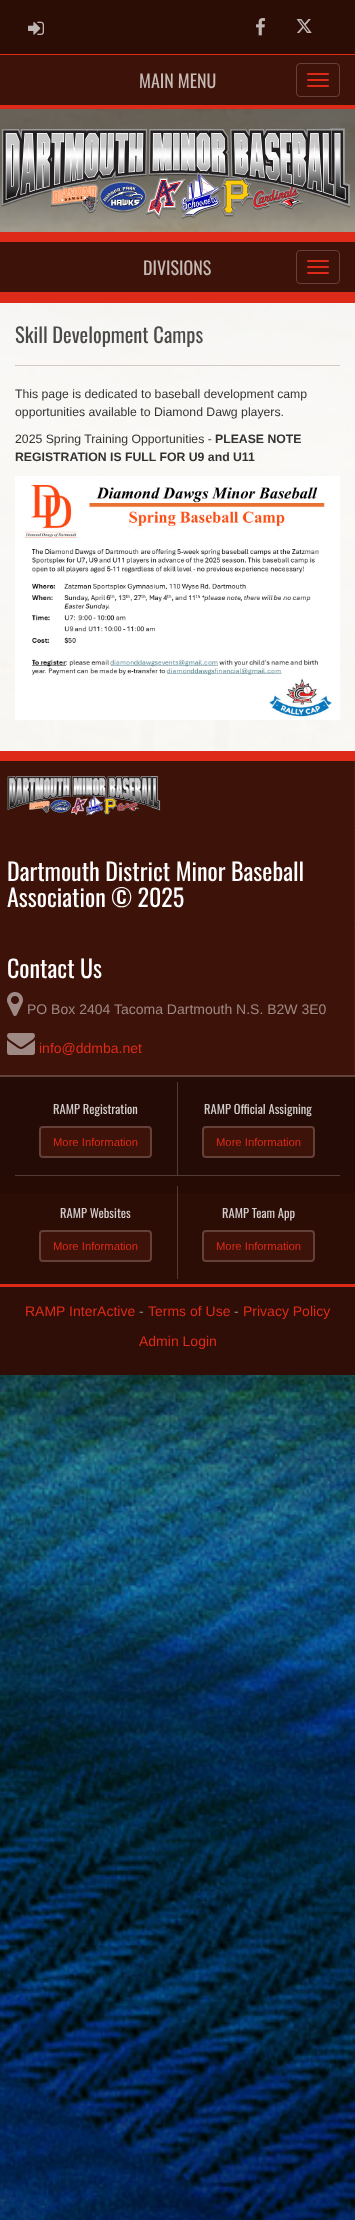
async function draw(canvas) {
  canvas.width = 355
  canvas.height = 2220
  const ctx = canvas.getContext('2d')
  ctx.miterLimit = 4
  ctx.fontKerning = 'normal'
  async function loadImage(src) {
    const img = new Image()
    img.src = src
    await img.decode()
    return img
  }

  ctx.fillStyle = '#fff'
  ctx.fillRect(0, 0, 355, 2220)
  ctx.fillStyle = '#de2b19'
  ctx.fillRect(0, 54, 355, 1)
  ctx.fillStyle = '#2b0d06'
  ctx.fillRect(0, 0, 355, 54)
  ctx.drawImage(await loadImage('image0.png'), 28, 21, 16, 14)
  ctx.drawImage(await loadImage('image1.png'), 256, 18, 9, 18)
  ctx.drawImage(await loadImage('image2.png'), 296, 19, 16, 14)
  ctx.fillStyle = '#3d1208'
  ctx.fillRect(0, 55, 355, 50)
  ctx.fillStyle = '#de2b19'
  ctx.fillRect(0, 105, 355, 4)
  ctx.font = '18px Oswald'
  ctx.fillStyle = '#c5b8b5'
  ctx.fillText('MAIN MENU', 139, 88)
  ctx.beginPath()
  ctx.roundRect(296.5, 63.5, 43, 33, 3.5)
  ctx.strokeStyle = '#644139'
  ctx.stroke()
  ctx.fillStyle = '#de2b19'
  ctx.beginPath()
  ctx.roundRect(307, 73, 22, 2, 1)
  ctx.fill()
  ctx.beginPath()
  ctx.roundRect(307, 79, 22, 2, 1)
  ctx.fill()
  ctx.beginPath()
  ctx.roundRect(307, 85, 22, 2, 1)
  ctx.fill()
  ctx.drawImage(await loadImage('image3.png'), 0, 109, 355, 2111)
  ctx.drawImage(await loadImage('image4.png'), 0, 109, 355, 123)
  ctx.drawImage(await loadImage('image5.png'), 1, 128, 350, 91)
  ctx.fillRect(0, 232, 355, 10)
  ctx.fillStyle = '#3d1208'
  ctx.fillRect(0, 242, 355, 50)
  ctx.fillStyle = '#c5b8b5'
  ctx.fillText('DIVISIONS', 143, 275)
  ctx.beginPath()
  ctx.roundRect(296.5, 250.5, 43, 33, 3.5)
  ctx.stroke()
  ctx.fillStyle = '#de2b19'
  ctx.beginPath()
  ctx.roundRect(307, 260, 22, 2, 1)
  ctx.fill()
  ctx.beginPath()
  ctx.roundRect(307, 266, 22, 2, 1)
  ctx.fill()
  ctx.beginPath()
  ctx.roundRect(307, 272, 22, 2, 1)
  ctx.fill()
  ctx.fillRect(0, 292, 355, 11)
  ctx.fillStyle = '#ffffffe6'
  ctx.fillRect(0, 303, 355, 448)
  ctx.font = '20.5px Oswald'
  ctx.fillStyle = '#4a4a49'
  ctx.fillText('Skill Development Camps', 15, 343)
  ctx.fillStyle = '#3d120833'
  ctx.fillRect(15, 365, 325, 1)
  ctx.font = '12.25px Liberation Sans'
  ctx.fillStyle = '#333'
  ctx.fillText('This page is dedicated to baseball development camp', 15, 398)
  ctx.fillText('opportunities available to Diamond Dawg players.', 15, 416)
  ctx.fillText('2025 Spring Training Opportunities -', 15, 443)
  ctx.font = 'bold 12.25px Liberation Sans'
  ctx.fillText('PLEASE NOTE', 215, 443)
  ctx.fillText('REGISTRATION IS FULL FOR U9 and U11', 15, 461)
  ctx.drawImage(await loadImage('image6.png'), 15, 476, 325, 244)
  ctx.fillStyle = '#de2b19'
  ctx.fillRect(0, 751, 355, 10)
  ctx.fillStyle = '#3d1208'
  ctx.fillRect(0, 761, 355, 314)
  ctx.beginPath()
  ctx.moveTo(354.5, 761)
  ctx.lineTo(354.5, 830)
  ctx.strokeStyle = '#502a21'
  ctx.setLineDash([1, 1])
  ctx.stroke()
  ctx.drawImage(await loadImage('image7.png'), 7, 776, 154, 40)
  ctx.beginPath()
  ctx.moveTo(354.5, 830)
  ctx.lineTo(354.5, 927)
  ctx.stroke()
  ctx.font = '24px Oswald'
  ctx.fillStyle = '#fff'
  ctx.fillText('Dartmouth District Minor Baseball', 7, 881)
  ctx.fillText('Association © 2025', 7, 907)
  ctx.beginPath()
  ctx.moveTo(354.5, 927)
  ctx.lineTo(354.5, 1075)
  ctx.stroke()
  ctx.fillText('Contact Us', 7, 978)
  ctx.drawImage(await loadImage('image8.png'), 7, 992, 16, 24)
  ctx.font = '14px Liberation Sans'
  ctx.fillStyle = '#9e8984'
  ctx.fillText('PO Box 2404 Tacoma Dartmouth N.S. B2W 3E0', 27, 1014)
  ctx.drawImage(await loadImage('image9.png'), 7, 1033, 28, 22)
  ctx.fillStyle = '#de2b19'
  ctx.fillText('info@ddmba.net', 39, 1053)
  ctx.fillStyle = '#644139'
  ctx.fillRect(0, 1075, 355, 2)
  ctx.fillStyle = '#2b0d06'
  ctx.fillRect(0, 1077, 355, 207)
  ctx.drawImage(await loadImage('image10.png'), 0, 1077, 355, 116)
  ctx.fillStyle = '#513c37'
  ctx.beginPath()
  ctx.moveTo(178, 1082)
  ctx.lineTo(178, 1176)
  ctx.lineTo(177, 1175)
  ctx.lineTo(177, 1082)
  ctx.closePath()
  ctx.fill()
  ctx.fillStyle = '#ffffff33'
  ctx.beginPath()
  ctx.moveTo(178, 1176)
  ctx.lineTo(15, 1176)
  ctx.lineTo(15, 1175)
  ctx.lineTo(177, 1175)
  ctx.closePath()
  ctx.fill()
  ctx.font = '12.5px Oswald'
  ctx.fillStyle = '#d3cecd'
  ctx.fillText('RAMP Registration', 53, 1114)
  ctx.fillStyle = '#3d1208'
  ctx.beginPath()
  ctx.roundRect(39, 1126, 113, 32, 4)
  ctx.fill()
  ctx.beginPath()
  ctx.roundRect(40, 1127, 111, 30, 3)
  ctx.strokeStyle = '#ffffff33'
  ctx.lineWidth = 2
  ctx.setLineDash([])
  ctx.stroke()
  ctx.font = '11.25px Liberation Sans'
  ctx.fillStyle = '#de2b19'
  ctx.fillText('More Information', 53, 1146)
  ctx.fillStyle = '#513c37'
  ctx.fillRect(178, 1175, 162, 1)
  ctx.font = '12.5px Oswald'
  ctx.fillStyle = '#d3cecd'
  ctx.fillText('RAMP Official Assigning', 204, 1114)
  ctx.fillStyle = '#3d1208'
  ctx.beginPath()
  ctx.roundRect(202, 1126, 113, 32, 4)
  ctx.fill()
  ctx.beginPath()
  ctx.roundRect(203, 1127, 111, 30, 3)
  ctx.stroke()
  ctx.font = '11.25px Liberation Sans'
  ctx.fillStyle = '#de2b19'
  ctx.fillText('More Information', 216, 1146)
  ctx.fillStyle = '#ffffff33'
  ctx.fillRect(177, 1186, 1, 93)
  ctx.font = '12.5px Oswald'
  ctx.fillStyle = '#d3cecd'
  ctx.fillText('RAMP Websites', 60, 1218)
  ctx.fillStyle = '#3d1208'
  ctx.beginPath()
  ctx.roundRect(39, 1230, 113, 32, 4)
  ctx.fill()
  ctx.beginPath()
  ctx.roundRect(40, 1231, 111, 30, 3)
  ctx.stroke()
  ctx.font = '11.25px Liberation Sans'
  ctx.fillStyle = '#de2b19'
  ctx.fillText('More Information', 53, 1250)
  ctx.font = '12.5px Oswald'
  ctx.fillStyle = '#d3cecd'
  ctx.fillText('RAMP Team App', 222, 1218)
  ctx.fillStyle = '#3d1208'
  ctx.beginPath()
  ctx.roundRect(202, 1230, 113, 32, 4)
  ctx.fill()
  ctx.beginPath()
  ctx.roundRect(203, 1231, 111, 30, 3)
  ctx.stroke()
  ctx.font = '11.25px Liberation Sans'
  ctx.fillStyle = '#de2b19'
  ctx.fillText('More Information', 216, 1250)
  ctx.fillRect(0, 1284, 355, 3)
  ctx.fillStyle = '#2e0e06'
  ctx.fillRect(0, 1287, 355, 88)
  ctx.font = '14px Liberation Sans'
  ctx.fillStyle = '#de2b19'
  ctx.fillText('RAMP InterActive', 25, 1316)
  ctx.fillStyle = '#978783'
  ctx.fillText('-', 139, 1316)
  ctx.fillStyle = '#de2b19'
  ctx.fillText('Terms of Use', 148, 1316)
  ctx.fillStyle = '#978783'
  ctx.fillText('-', 234, 1316)
  ctx.fillStyle = '#de2b19'
  ctx.fillText('Privacy Policy', 243, 1316)
  ctx.fillText('Admin Login', 139, 1346)
}

draw(document.querySelector('canvas'))
